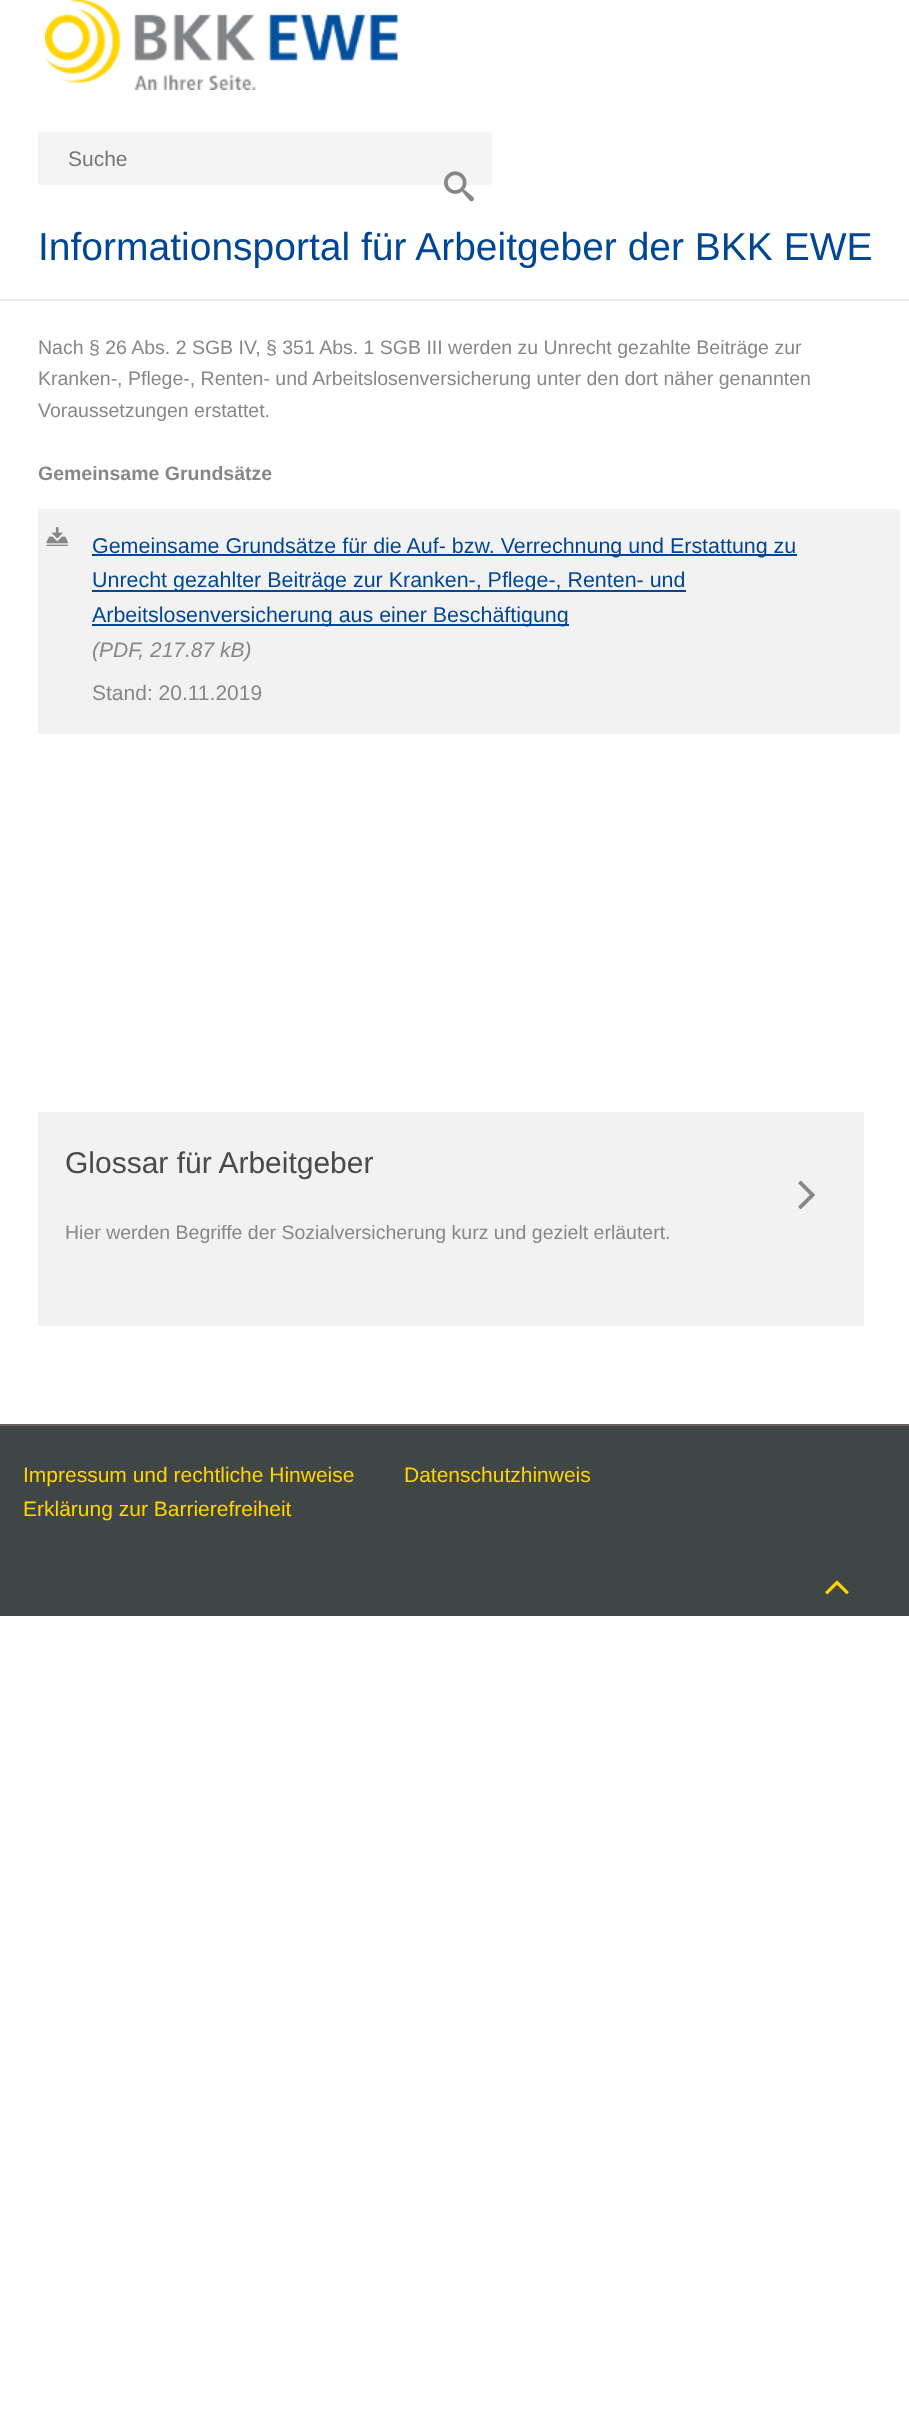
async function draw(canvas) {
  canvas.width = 909
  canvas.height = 2424
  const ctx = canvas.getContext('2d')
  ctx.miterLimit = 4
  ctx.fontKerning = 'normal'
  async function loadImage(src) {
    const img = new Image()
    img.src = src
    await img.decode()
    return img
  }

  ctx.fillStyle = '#fff'
  ctx.fillRect(0, 0, 909, 2424)
  ctx.drawImage(await loadImage('image0.png'), 45, 0, 353, 90)
  ctx.fillStyle = '#f4f4f4'
  ctx.beginPath()
  ctx.roundRect(38, 132, 454, 53, 3)
  ctx.fill()
  ctx.font = '21px Liberation Sans'
  ctx.fillStyle = '#757575'
  ctx.fillText('Suche', 68, 166)
  ctx.drawImage(await loadImage('image1.png'), 444, 171, 30, 31)
  ctx.fillStyle = '#ececec'
  ctx.fillRect(0, 299, 909, 2)
  ctx.font = '39px Liberation Sans'
  ctx.fillStyle = '#014694'
  ctx.fillText('Informationsportal für Arbeitgeber der BKK EWE', 38, 260)
  ctx.font = '19.5px Liberation Sans'
  ctx.fillStyle = '#878787'
  ctx.fillText('Nach § 26 Abs. 2 SGB IV, § 351 Abs. 1 SGB III werden zu Unrecht gezahlte Beiträge zur', 38, 354)
  ctx.fillText('Kranken-, Pflege-, Renten- und Arbeitslosenversicherung unter den dort näher genannten', 38, 385)
  ctx.fillText('Voraussetzungen erstattet.', 38, 417)
  ctx.font = 'bold 19.5px Liberation Sans'
  ctx.fillText('Gemeinsame Grundsätze', 38, 480)
  ctx.fillStyle = '#f2f2f2'
  ctx.fillRect(38, 509, 862, 225)
  ctx.drawImage(await loadImage('image2.png'), 46, 527, 22, 19)
  ctx.fillStyle = '#014694'
  ctx.fillRect(92, 554, 705, 2)
  ctx.font = '21.45px Liberation Sans'
  ctx.fillText('Gemeinsame Grundsätze für die Auf- bzw. Verrechnung und Erstattung zu', 92, 553)
  ctx.fillRect(92, 590, 594, 2)
  ctx.fillText('Unrecht gezahlter Beiträge zur Kranken-, Pflege-, Renten- und', 92, 587)
  ctx.fillRect(92, 624, 477, 2)
  ctx.fillText('Arbeitslosenversicherung aus einer Beschäftigung', 92, 622)
  ctx.font = 'italic 21px Liberation Sans'
  ctx.fillStyle = '#878787'
  ctx.fillText('(PDF, 217.87 kB)', 92, 657)
  ctx.font = '21px Liberation Sans'
  ctx.fillText('Stand: 20.11.2019', 92, 700)
  ctx.fillStyle = '#f2f2f2'
  ctx.fillRect(38, 1112, 826, 214)
  ctx.font = '30px Liberation Sans'
  ctx.fillStyle = '#4a4a49'
  ctx.fillText('Glossar für Arbeitgeber', 65, 1173)
  ctx.drawImage(await loadImage('image3.png'), 798, 1180, 17, 30)
  ctx.font = '19.5px Liberation Sans'
  ctx.fillStyle = '#878787'
  ctx.fillText('Hier werden Begriffe der Sozialversicherung kurz und gezielt erläutert.', 65, 1239)
  ctx.fillStyle = '#404546'
  ctx.fillRect(0, 1426, 909, 190)
  ctx.fillStyle = '#646464'
  ctx.fillRect(0, 1424, 909, 2)
  ctx.font = '21px Liberation Sans'
  ctx.fillStyle = '#ffd500'
  ctx.fillText('Impressum und rechtliche Hinweise', 23, 1482)
  ctx.fillText('Datenschutzhinweis', 404, 1482)
  ctx.fillText('Erklärung zur Barrierefreiheit', 23, 1516)
  ctx.drawImage(await loadImage('image4.png'), 825, 1580, 24, 15)
}

draw(document.querySelector('canvas'))
